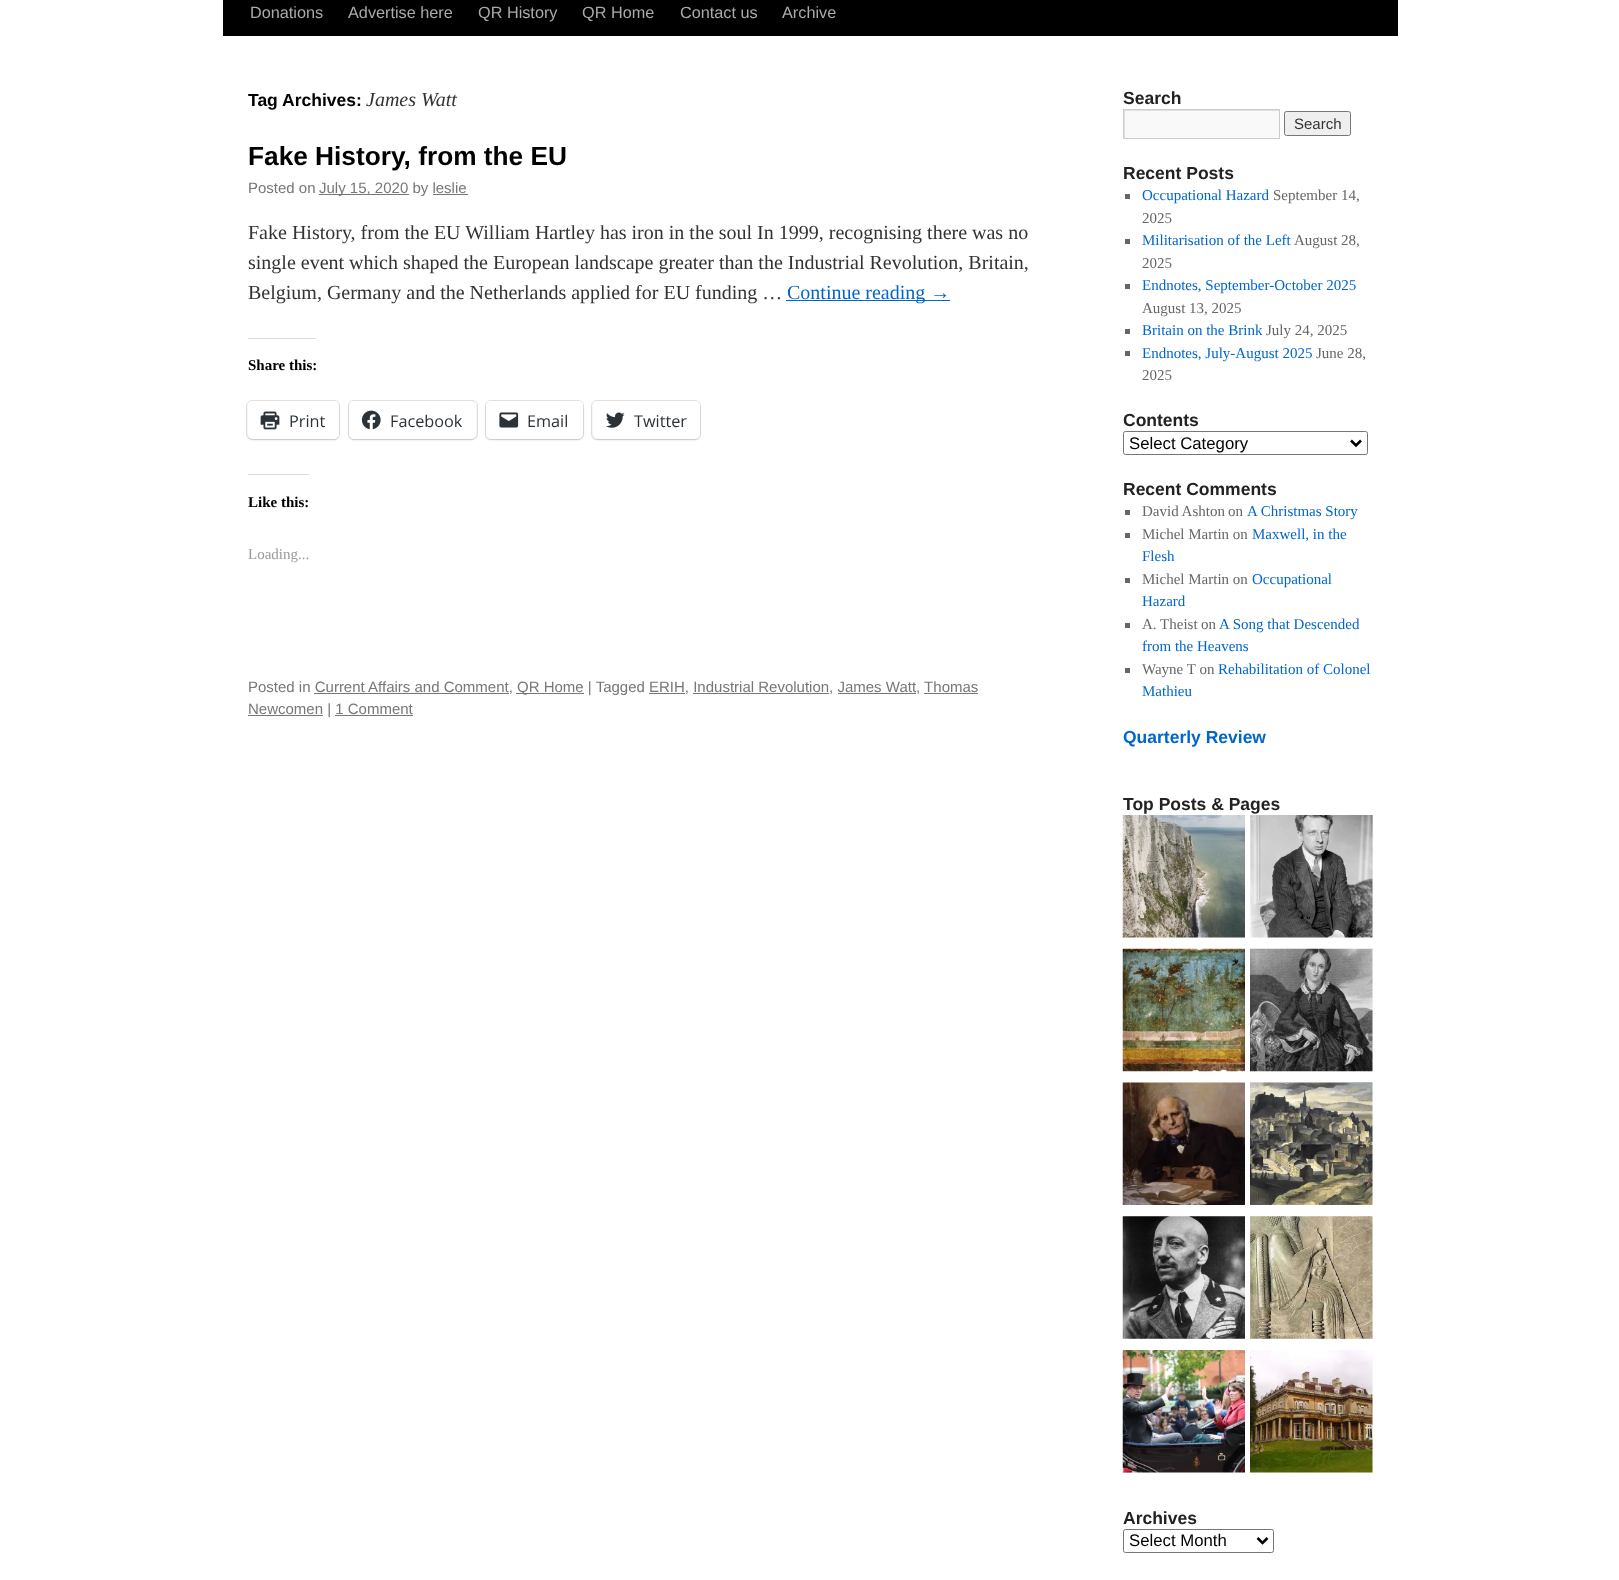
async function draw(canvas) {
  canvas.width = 1619
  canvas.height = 1580
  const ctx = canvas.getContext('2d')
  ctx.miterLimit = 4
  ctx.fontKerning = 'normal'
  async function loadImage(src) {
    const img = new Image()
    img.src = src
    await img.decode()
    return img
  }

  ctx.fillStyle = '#fff'
  ctx.fillRect(0, 0, 1619, 1580)
  ctx.fillStyle = '#000'
  ctx.fillRect(223, 0, 1175, 36)
  ctx.font = '16.25px Liberation Sans'
  ctx.fillStyle = '#aaa'
  ctx.fillText('Donations', 250, 18)
  ctx.fillText('Advertise here', 348, 18)
  ctx.fillText('QR History', 478, 18)
  ctx.fillText('QR Home', 582, 18)
  ctx.fillText('Contact us', 680, 18)
  ctx.fillText('Archive', 782, 18)
  ctx.font = 'bold 17.5px Liberation Sans'
  ctx.fillStyle = '#000'
  ctx.fillText('Tag Archives:', 248, 106)
  ctx.font = 'italic 20px Liberation Serif'
  ctx.fillStyle = '#333'
  ctx.fillText('James Watt', 366, 106)
  ctx.font = 'bold 26.25px Liberation Sans'
  ctx.fillStyle = '#000'
  ctx.fillText('Fake History, from the EU', 248, 165)
  ctx.font = '15px Liberation Sans'
  ctx.fillStyle = '#777'
  ctx.fillText('Posted on', 248, 193)
  ctx.fillRect(319, 194, 90, 1)
  ctx.fillText('July 15, 2020 by leslie', 319, 193)
  ctx.fillRect(433, 194, 35, 1)
  ctx.font = '20px Liberation Serif'
  ctx.fillStyle = '#333'
  ctx.fillText('Fake History, from the EU William Hartley has iron in the soul In 1999, recognising there was no', 248, 239)
  ctx.fillText('single event which shaped the European landscape greater than the Industrial Revolution, Britain,', 248, 269)
  ctx.fillText('Belgium, Germany and the Netherlands applied for EU funding …', 248, 299)
  ctx.fillStyle = '#06c'
  ctx.fillRect(786, 300, 164, 1)
  ctx.fillText('Continue reading →', 787, 299)
  ctx.fillStyle = '#dcdcde'
  ctx.fillRect(248, 338, 68, 1)
  ctx.font = 'bold 15px Liberation Serif'
  ctx.fillStyle = '#000'
  ctx.fillText('Share this:', 248, 370)
  ctx.beginPath()
  ctx.roundRect(246.5, 400.5, 93, 39, 5.5)
  ctx.strokeStyle = '#e0e0e0'
  ctx.stroke()
  ctx.fillStyle = '#0000001f'
  ctx.filter = 'blur(1px)'
  ctx.beginPath()
  ctx.roundRect(248, 403, 91, 37, 5)
  ctx.fill()
  ctx.filter = 'none'
  ctx.fillStyle = '#fff'
  ctx.beginPath()
  ctx.roundRect(248, 401, 91, 38, 5)
  ctx.fill()
  ctx.drawImage(await loadImage('image0.png'), 260, 411, 20, 19)
  ctx.font = '16.25px Open Sans'
  ctx.fillStyle = '#2c3338'
  ctx.fillText('Print', 289, 427)
  ctx.beginPath()
  ctx.roundRect(348.5, 400.5, 129, 39, 5.5)
  ctx.stroke()
  ctx.fillStyle = '#0000001f'
  ctx.filter = 'blur(1px)'
  ctx.beginPath()
  ctx.roundRect(349, 403, 127, 37, 5)
  ctx.fill()
  ctx.filter = 'none'
  ctx.fillStyle = '#fff'
  ctx.beginPath()
  ctx.roundRect(349, 401, 127, 38, 5)
  ctx.fill()
  ctx.drawImage(await loadImage('image1.png'), 361, 410, 20, 20)
  ctx.fillStyle = '#2c3338'
  ctx.fillText('Facebook', 390, 427)
  ctx.beginPath()
  ctx.roundRect(485.5, 400.5, 98, 39, 5.5)
  ctx.stroke()
  ctx.fillStyle = '#0000001f'
  ctx.filter = 'blur(1px)'
  ctx.beginPath()
  ctx.roundRect(486, 403, 97, 37, 5)
  ctx.fill()
  ctx.filter = 'none'
  ctx.fillStyle = '#fff'
  ctx.beginPath()
  ctx.roundRect(486, 401, 97, 38, 5)
  ctx.fill()
  ctx.drawImage(await loadImage('image2.png'), 499, 412, 20, 16)
  ctx.fillStyle = '#2c3338'
  ctx.fillText('Email', 527, 427)
  ctx.beginPath()
  ctx.roundRect(591.5, 400.5, 109, 39, 5.5)
  ctx.stroke()
  ctx.fillStyle = '#0000001f'
  ctx.filter = 'blur(1px)'
  ctx.beginPath()
  ctx.roundRect(593, 403, 107, 37, 5)
  ctx.fill()
  ctx.filter = 'none'
  ctx.fillStyle = '#fff'
  ctx.beginPath()
  ctx.roundRect(593, 401, 107, 38, 5)
  ctx.fill()
  ctx.drawImage(await loadImage('image3.png'), 606, 412, 19, 16)
  ctx.fillStyle = '#2c3338'
  ctx.fillText('Twitter', 634, 427)
  ctx.fillStyle = '#dcdcde'
  ctx.fillRect(248, 474, 61, 1)
  ctx.font = 'bold 15px Liberation Serif'
  ctx.fillStyle = '#000'
  ctx.fillText('Like this:', 248, 507)
  ctx.font = '15px Liberation Serif'
  ctx.fillStyle = '#999'
  ctx.fillText('Loading...', 248, 559)
  ctx.font = '15px Liberation Sans'
  ctx.fillStyle = '#777'
  ctx.fillText('Posted in Current Affairs and Comment,', 248, 692)
  ctx.fillRect(314, 693, 195, 1)
  ctx.fillRect(516, 693, 68, 1)
  ctx.fillText('QR Home | Tagged ERIH, Industrial Revolution, James Watt, Thomas', 517, 692)
  ctx.fillRect(248, 715, 75, 1)
  ctx.fillText('Newcomen | 1 Comment', 248, 714)
  ctx.fillRect(649, 693, 36, 1)
  ctx.fillRect(693, 693, 136, 1)
  ctx.fillRect(838, 693, 78, 1)
  ctx.fillRect(924, 693, 54, 1)
  ctx.fillRect(335, 715, 78, 1)
  ctx.font = 'bold 17.5px Liberation Sans'
  ctx.fillStyle = '#222'
  ctx.fillText('Search', 1123, 104)
  ctx.fillStyle = '#f9f9f9'
  ctx.fillRect(1125, 111, 154, 27)
  ctx.save()
  ctx.beginPath()
  ctx.rect(1124, 110, 155, 28)
  ctx.clip()
  ctx.fillStyle = '#e0e0e0'
  ctx.beginPath()
  ctx.moveTo(1000, -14)
  ctx.lineTo(1402, -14)
  ctx.lineTo(1402, 261)
  ctx.lineTo(1000, 261)
  ctx.closePath()
  ctx.moveTo(1125, 111)
  ctx.lineTo(1280, 111)
  ctx.lineTo(1280, 139)
  ctx.lineTo(1125, 139)
  ctx.closePath()
  ctx.fill('evenodd')
  ctx.restore()
  ctx.strokeStyle = '#ccc'
  ctx.strokeRect(1123.5, 109.5, 156, 29)
  ctx.fillStyle = '#efefef'
  ctx.beginPath()
  ctx.roundRect(1284.5, 111.5, 66, 24, 2)
  ctx.fill()
  ctx.strokeStyle = '#767676'
  ctx.stroke()
  ctx.font = '15px Liberation Sans'
  ctx.fillStyle = '#333'
  ctx.fillText('Search', 1294, 129)
  ctx.font = 'bold 17.5px Liberation Sans'
  ctx.fillStyle = '#222'
  ctx.fillText('Recent Posts', 1123, 179)
  ctx.fillStyle = '#666'
  ctx.fillRect(1125, 194, 5, 5)
  ctx.font = '15px Liberation Serif'
  ctx.fillStyle = '#06c'
  ctx.fillText('Occupational Hazard', 1142, 200)
  ctx.fillStyle = '#666'
  ctx.fillText('September 14,', 1273, 200)
  ctx.fillText('2025', 1142, 223)
  ctx.fillRect(1125, 239, 5, 5)
  ctx.fillStyle = '#06c'
  ctx.fillText('Militarisation of the Left', 1142, 245)
  ctx.fillStyle = '#666'
  ctx.fillText('August 28,', 1294, 245)
  ctx.fillText('2025', 1142, 268)
  ctx.fillRect(1125, 284, 5, 5)
  ctx.fillStyle = '#06c'
  ctx.fillText('Endnotes, September-October 2025', 1142, 290)
  ctx.fillStyle = '#666'
  ctx.fillText('August 13, 2025', 1142, 313)
  ctx.fillRect(1125, 329, 5, 5)
  ctx.fillStyle = '#06c'
  ctx.fillText('Britain on the Brink', 1142, 335)
  ctx.fillStyle = '#666'
  ctx.fillText('July 24, 2025', 1266, 335)
  ctx.fillRect(1125, 351, 5, 5)
  ctx.fillStyle = '#06c'
  ctx.fillText('Endnotes, July-August 2025', 1142, 358)
  ctx.fillStyle = '#666'
  ctx.fillText('June 28,', 1316, 358)
  ctx.fillText('2025', 1142, 380)
  ctx.font = 'bold 17.5px Liberation Sans'
  ctx.fillStyle = '#222'
  ctx.fillText('Contents', 1123, 426)
  ctx.beginPath()
  ctx.roundRect(1123.5, 431.5, 244, 23, 2)
  ctx.stroke()
  ctx.beginPath()
  ctx.moveTo(1351, 440.5)
  ctx.lineTo(1356, 445.5)
  ctx.lineTo(1361, 440.5)
  ctx.strokeStyle = '#000'
  ctx.lineWidth = 2.5
  ctx.stroke()
  ctx.font = '16.75px Liberation Sans'
  ctx.fillStyle = '#000'
  ctx.fillText('Select Category', 1129, 449)
  ctx.font = 'bold 17.5px Liberation Sans'
  ctx.fillStyle = '#222'
  ctx.fillText('Recent Comments', 1123, 495)
  ctx.fillStyle = '#666'
  ctx.fillRect(1125, 510, 5, 5)
  ctx.font = '15px Liberation Serif'
  ctx.fillText('David Ashton', 1142, 516)
  ctx.fillText('on', 1228, 516)
  ctx.fillStyle = '#06c'
  ctx.fillText('A Christmas Story', 1247, 516)
  ctx.fillStyle = '#666'
  ctx.fillRect(1125, 533, 5, 5)
  ctx.fillText('Michel Martin on', 1142, 539)
  ctx.fillStyle = '#06c'
  ctx.fillText('Maxwell, in the', 1252, 539)
  ctx.fillText('Flesh', 1142, 561)
  ctx.fillStyle = '#666'
  ctx.fillRect(1125, 578, 5, 5)
  ctx.fillText('Michel Martin on', 1142, 584)
  ctx.fillStyle = '#06c'
  ctx.fillText('Occupational', 1252, 584)
  ctx.fillText('Hazard', 1142, 606)
  ctx.fillStyle = '#666'
  ctx.fillRect(1125, 623, 5, 5)
  ctx.fillText('A. Theist', 1142, 629)
  ctx.fillText('on', 1201, 629)
  ctx.fillStyle = '#06c'
  ctx.fillText('A Song that Descended', 1219, 629)
  ctx.fillText('from the Heavens', 1142, 651)
  ctx.fillStyle = '#666'
  ctx.fillRect(1125, 668, 5, 5)
  ctx.fillText('Wayne T on', 1142, 674)
  ctx.fillStyle = '#06c'
  ctx.fillText('Rehabilitation of Colonel', 1218, 674)
  ctx.fillText('Mathieu', 1142, 696)
  ctx.font = 'bold 17.5px Liberation Sans'
  ctx.fillText('Quarterly Review', 1123, 743)
  ctx.fillStyle = '#222'
  ctx.fillText('Top Posts & Pages', 1123, 810)
  ctx.drawImage(await loadImage('image4.png'), 1122, 815, 123, 123)
  ctx.drawImage(await loadImage('image5.png'), 1250, 815, 123, 123)
  ctx.drawImage(await loadImage('image6.png'), 1122, 948, 123, 124)
  ctx.drawImage(await loadImage('image7.png'), 1250, 948, 123, 124)
  ctx.drawImage(await loadImage('image8.png'), 1122, 1082, 123, 123)
  ctx.drawImage(await loadImage('image9.png'), 1250, 1082, 123, 123)
  ctx.drawImage(await loadImage('image10.png'), 1122, 1216, 123, 123)
  ctx.drawImage(await loadImage('image11.png'), 1250, 1216, 123, 123)
  ctx.drawImage(await loadImage('image12.png'), 1122, 1350, 123, 123)
  ctx.drawImage(await loadImage('image13.png'), 1250, 1350, 123, 123)
  ctx.fillText('Archives', 1123, 1524)
  ctx.beginPath()
  ctx.roundRect(1123.5, 1529.5, 150, 23, 2)
  ctx.strokeStyle = '#767676'
  ctx.lineWidth = 1
  ctx.stroke()
  ctx.beginPath()
  ctx.moveTo(1257.5, 1538)
  ctx.lineTo(1262.5, 1543)
  ctx.lineTo(1267.5, 1538)
  ctx.strokeStyle = '#000'
  ctx.lineWidth = 2.5
  ctx.stroke()
  ctx.font = '16.75px Liberation Sans'
  ctx.fillStyle = '#000'
  ctx.fillText('Select Month', 1129, 1546)
}

draw(document.querySelector('canvas'))
